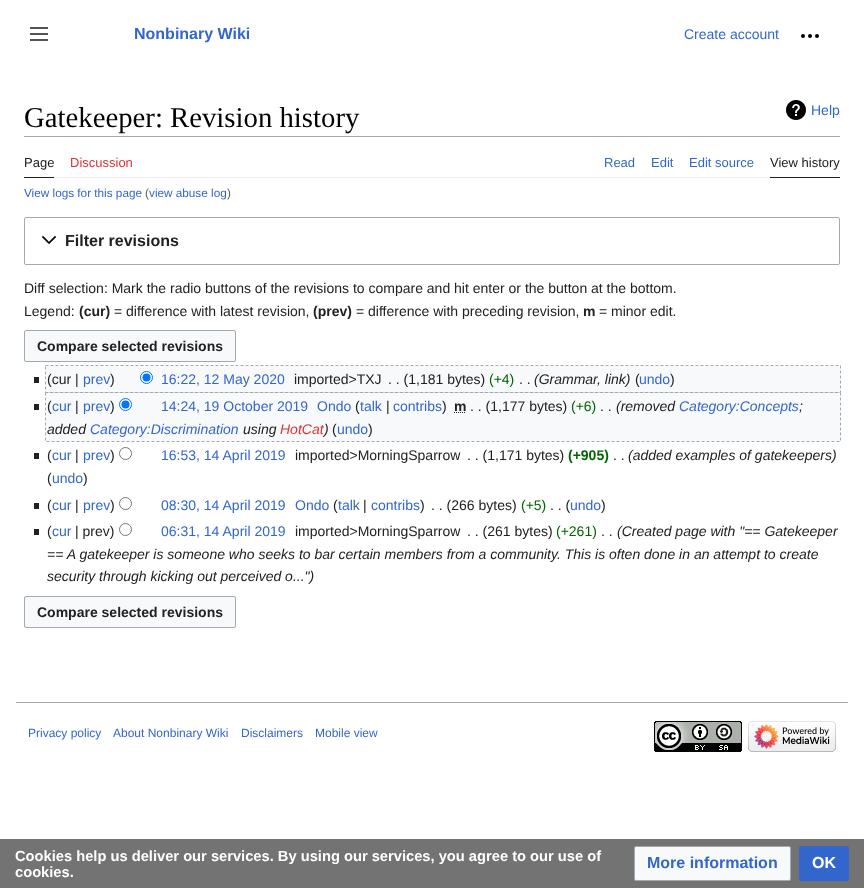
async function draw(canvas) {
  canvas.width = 864
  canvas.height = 888
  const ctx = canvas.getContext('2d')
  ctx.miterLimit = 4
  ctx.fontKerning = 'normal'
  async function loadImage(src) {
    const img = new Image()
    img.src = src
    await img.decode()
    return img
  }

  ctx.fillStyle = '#fff'
  ctx.fillRect(0, 0, 864, 888)
  ctx.drawImage(await loadImage('image0.png'), 30, 27, 18, 14)
  ctx.font = 'bold 16px Liberation Sans'
  ctx.fillStyle = '#36c'
  ctx.fillText('Nonbinary Wiki', 134, 39)
  ctx.font = '14px Liberation Sans'
  ctx.fillText('Create account', 684, 39)
  ctx.drawImage(await loadImage('image1.png'), 801, 34, 18, 4)
  ctx.fillStyle = '#a2a9b1'
  ctx.fillRect(24, 136, 816, 1)
  ctx.font = '28.75px Liberation Serif'
  ctx.fillStyle = '#000'
  ctx.fillText('Gatekeeper: Revision history', 24, 127)
  ctx.drawImage(await loadImage('image2.png'), 786, 100, 20, 20)
  ctx.font = '14px Liberation Sans'
  ctx.fillStyle = '#36c'
  ctx.fillText('Help', 811, 115)
  ctx.fillStyle = '#eaecf0'
  ctx.fillRect(54, 177, 716, 1)
  ctx.fillStyle = '#202122'
  ctx.fillRect(24, 177, 30, 1)
  ctx.font = '13px Liberation Sans'
  ctx.fillText('Page', 24, 167)
  ctx.fillStyle = '#d33'
  ctx.fillText('Discussion', 70, 167)
  ctx.fillStyle = '#36c'
  ctx.fillText('Read', 604, 167)
  ctx.fillText('Edit', 651, 167)
  ctx.fillText('Edit source', 689, 167)
  ctx.fillStyle = '#202122'
  ctx.fillRect(770, 177, 70, 1)
  ctx.fillText('View history', 770, 167)
  ctx.font = '11.75px Liberation Sans'
  ctx.fillStyle = '#36c'
  ctx.fillText('View logs for this page', 24, 197)
  ctx.fillStyle = '#54595d'
  ctx.fillText('(', 145, 197)
  ctx.fillStyle = '#36c'
  ctx.fillText('view abuse log', 149, 197)
  ctx.fillStyle = '#54595d'
  ctx.fillText(')', 227, 197)
  ctx.beginPath()
  ctx.roundRect(24.5, 217.5, 815, 47, 1.5)
  ctx.strokeStyle = '#a2a9b1'
  ctx.stroke()
  ctx.drawImage(await loadImage('image3.png'), 42, 236, 15, 8)
  ctx.font = 'bold 16px Liberation Sans'
  ctx.fillStyle = '#202122'
  ctx.fillText('Filter revisions', 65, 246)
  ctx.font = '14px Liberation Sans'
  ctx.fillText('Diff selection: Mark the radio buttons of the revisions to compare and hit enter or the button at the bottom.', 24, 293)
  ctx.fillText('Legend:', 24, 316)
  ctx.font = 'bold 14px Liberation Sans'
  ctx.fillText('(cur)', 79, 316)
  ctx.font = '14px Liberation Sans'
  ctx.fillText('= difference with latest revision,', 114, 316)
  ctx.font = 'bold 14px Liberation Sans'
  ctx.fillText('(prev)', 313, 316)
  ctx.font = '14px Liberation Sans'
  ctx.fillText('= difference with preceding revision,', 356, 316)
  ctx.font = 'bold 14px Liberation Sans'
  ctx.fillText('m', 583, 316)
  ctx.font = '14px Liberation Sans'
  ctx.fillText('= minor edit.', 599, 316)
  ctx.fillStyle = '#f8f9fa'
  ctx.beginPath()
  ctx.roundRect(24.5, 330.5, 211, 31, 1.5)
  ctx.fill()
  ctx.stroke()
  ctx.font = 'bold 14px Liberation Sans'
  ctx.fillStyle = '#202122'
  ctx.fillText('Compare selected revisions', 37, 351)
  ctx.fillStyle = '#f8f9fa'
  ctx.fillRect(46, 366, 794, 26)
  ctx.fillStyle = '#202122'
  ctx.fillRect(34, 377, 5, 6)
  ctx.font = '14px Liberation Sans'
  ctx.fillText('(cur |', 47, 384)
  ctx.fillStyle = '#36c'
  ctx.fillText('prev', 83, 384)
  ctx.fillStyle = '#202122'
  ctx.fillText(')', 110, 384)
  ctx.fillStyle = '#fff'
  ctx.beginPath()
  ctx.arc(146.5, 377.5, 6, 0, 2 * Math.PI)
  ctx.fill()
  ctx.strokeStyle = '#0075ff'
  ctx.stroke()
  ctx.fillStyle = '#0075ff'
  ctx.beginPath()
  ctx.arc(146.5, 377.5, 4, 0, 2 * Math.PI)
  ctx.fill()
  ctx.fillStyle = '#36c'
  ctx.fillText('16:22, 12 May 2020', 161, 384)
  ctx.fillStyle = '#202122'
  ctx.fillText('imported>TXJ', 294, 384)
  ctx.fillText('. . (1,181 bytes)', 388, 384)
  ctx.fillStyle = '#006400'
  ctx.fillText('(+4)', 489, 384)
  ctx.fillStyle = '#202122'
  ctx.fillText('. .', 519, 384)
  ctx.font = 'italic 14px Liberation Sans'
  ctx.fillText('(Grammar, link)', 534, 384)
  ctx.font = '14px Liberation Sans'
  ctx.fillText('(', 635, 384)
  ctx.fillStyle = '#36c'
  ctx.fillText('undo', 639, 384)
  ctx.fillStyle = '#202122'
  ctx.fillText(')', 670, 384)
  ctx.beginPath()
  ctx.moveTo(45.5, 365.5)
  ctx.lineTo(840.5, 365.5)
  ctx.lineTo(840.5, 392.5)
  ctx.lineTo(45.5, 392.5)
  ctx.closePath()
  ctx.strokeStyle = '#a2a9b1'
  ctx.setLineDash([3, 2])
  ctx.stroke()
  ctx.fillStyle = '#f8f9fa'
  ctx.fillRect(46, 393, 794, 48)
  ctx.fillStyle = '#202122'
  ctx.fillRect(34, 404, 5, 6)
  ctx.fillText('(', 47, 411)
  ctx.fillStyle = '#36c'
  ctx.fillText('cur', 52, 411)
  ctx.fillStyle = '#202122'
  ctx.fillText('|', 75, 411)
  ctx.fillStyle = '#36c'
  ctx.fillText('prev', 83, 411)
  ctx.fillStyle = '#202122'
  ctx.fillText(')', 110, 411)
  ctx.fillStyle = '#fff'
  ctx.beginPath()
  ctx.arc(125.5, 404.5, 6, 0, 2 * Math.PI)
  ctx.fill()
  ctx.strokeStyle = '#0075ff'
  ctx.setLineDash([])
  ctx.stroke()
  ctx.fillStyle = '#0075ff'
  ctx.beginPath()
  ctx.arc(125.5, 404.5, 4, 0, 2 * Math.PI)
  ctx.fill()
  ctx.fillStyle = '#36c'
  ctx.fillText('14:24, 19 October 2019', 161, 411)
  ctx.fillText('Ondo', 317, 411)
  ctx.fillStyle = '#202122'
  ctx.fillText('(', 355, 411)
  ctx.fillStyle = '#36c'
  ctx.fillText('talk', 360, 411)
  ctx.fillStyle = '#202122'
  ctx.fillText('|', 386, 411)
  ctx.fillStyle = '#36c'
  ctx.fillText('contribs', 393, 411)
  ctx.fillStyle = '#202122'
  ctx.fillText(')', 442, 411)
  ctx.font = 'bold 14px Liberation Sans'
  ctx.fillText('m', 454, 411)
  ctx.beginPath()
  ctx.moveTo(454, 412.5)
  ctx.lineTo(466, 412.5)
  ctx.strokeStyle = '#202122'
  ctx.setLineDash([1, 1])
  ctx.stroke()
  ctx.font = '14px Liberation Sans'
  ctx.fillText('. . (1,177 bytes)', 470, 411)
  ctx.fillStyle = '#006400'
  ctx.fillText('(+6)', 571, 411)
  ctx.fillStyle = '#202122'
  ctx.fillText('. .', 600, 411)
  ctx.font = 'italic 14px Liberation Sans'
  ctx.fillText('(removed', 616, 411)
  ctx.fillStyle = '#36c'
  ctx.fillText('Category:Concepts', 679, 411)
  ctx.fillStyle = '#202122'
  ctx.fillText(';', 799, 411)
  ctx.fillText('added', 47, 434)
  ctx.fillStyle = '#36c'
  ctx.fillText('Category:Discrimination', 90, 434)
  ctx.fillStyle = '#202122'
  ctx.fillText('using', 243, 434)
  ctx.fillStyle = '#d33'
  ctx.fillText('HotCat', 280, 434)
  ctx.fillStyle = '#202122'
  ctx.fillText(')', 324, 434)
  ctx.font = '14px Liberation Sans'
  ctx.fillText('(', 332, 434)
  ctx.fillStyle = '#36c'
  ctx.fillText('undo', 337, 434)
  ctx.fillStyle = '#202122'
  ctx.fillText(')', 368, 434)
  ctx.beginPath()
  ctx.moveTo(45.5, 392.5)
  ctx.lineTo(840.5, 392.5)
  ctx.lineTo(840.5, 441.5)
  ctx.lineTo(45.5, 441.5)
  ctx.closePath()
  ctx.strokeStyle = '#a2a9b1'
  ctx.setLineDash([3, 2])
  ctx.stroke()
  ctx.fillRect(34, 453, 5, 6)
  ctx.fillText('(', 47, 460)
  ctx.fillStyle = '#36c'
  ctx.fillText('cur', 52, 460)
  ctx.fillStyle = '#202122'
  ctx.fillText('|', 75, 460)
  ctx.fillStyle = '#36c'
  ctx.fillText('prev', 83, 460)
  ctx.fillStyle = '#202122'
  ctx.fillText(')', 110, 460)
  ctx.beginPath()
  ctx.arc(125.5, 453.5, 6, 0, 2 * Math.PI)
  ctx.strokeStyle = '#767676'
  ctx.setLineDash([])
  ctx.stroke()
  ctx.fillStyle = '#36c'
  ctx.fillText('16:53, 14 April 2019', 161, 460)
  ctx.fillStyle = '#202122'
  ctx.fillText('imported>MorningSparrow', 295, 460)
  ctx.fillText('. . (1,171 bytes)', 467, 460)
  ctx.font = 'bold 14px Liberation Sans'
  ctx.fillStyle = '#006400'
  ctx.fillText('(+905)', 568, 460)
  ctx.font = '14px Liberation Sans'
  ctx.fillStyle = '#202122'
  ctx.fillText('. .', 613, 460)
  ctx.font = 'italic 14px Liberation Sans'
  ctx.fillText('(added examples of gatekeepers)', 628, 460)
  ctx.font = '14px Liberation Sans'
  ctx.fillText('(', 47, 483)
  ctx.fillStyle = '#36c'
  ctx.fillText('undo', 52, 483)
  ctx.fillStyle = '#202122'
  ctx.fillText(')', 83, 483)
  ctx.fillRect(34, 503, 5, 6)
  ctx.fillText('(', 47, 510)
  ctx.fillStyle = '#36c'
  ctx.fillText('cur', 52, 510)
  ctx.fillStyle = '#202122'
  ctx.fillText('|', 75, 510)
  ctx.fillStyle = '#36c'
  ctx.fillText('prev', 83, 510)
  ctx.fillStyle = '#202122'
  ctx.fillText(')', 110, 510)
  ctx.beginPath()
  ctx.arc(125.5, 503.5, 6, 0, 2 * Math.PI)
  ctx.stroke()
  ctx.fillStyle = '#36c'
  ctx.fillText('08:30, 14 April 2019', 161, 510)
  ctx.fillText('Ondo', 295, 510)
  ctx.fillStyle = '#202122'
  ctx.fillText('(', 333, 510)
  ctx.fillStyle = '#36c'
  ctx.fillText('talk', 338, 510)
  ctx.fillStyle = '#202122'
  ctx.fillText('|', 363, 510)
  ctx.fillStyle = '#36c'
  ctx.fillText('contribs', 371, 510)
  ctx.fillStyle = '#202122'
  ctx.fillText(')', 420, 510)
  ctx.fillText('. . (266 bytes)', 431, 510)
  ctx.fillStyle = '#006400'
  ctx.fillText('(+5)', 521, 510)
  ctx.fillStyle = '#202122'
  ctx.fillText('. . (', 550, 510)
  ctx.fillStyle = '#36c'
  ctx.fillText('undo', 570, 510)
  ctx.fillStyle = '#202122'
  ctx.fillText(')', 601, 510)
  ctx.fillRect(34, 529, 5, 6)
  ctx.fillText('(', 47, 536)
  ctx.fillStyle = '#36c'
  ctx.fillText('cur', 52, 536)
  ctx.fillStyle = '#202122'
  ctx.fillText('| prev)', 75, 536)
  ctx.beginPath()
  ctx.arc(125.5, 529.5, 6, 0, 2 * Math.PI)
  ctx.stroke()
  ctx.fillStyle = '#36c'
  ctx.fillText('06:31, 14 April 2019', 161, 536)
  ctx.fillStyle = '#202122'
  ctx.fillText('imported>MorningSparrow', 295, 536)
  ctx.fillText('. . (261 bytes)', 467, 536)
  ctx.fillStyle = '#006400'
  ctx.fillText('(+261)', 556, 536)
  ctx.fillStyle = '#202122'
  ctx.fillText('. .', 601, 536)
  ctx.font = 'italic 14px Liberation Sans'
  ctx.fillText('(Created page with "== Gatekeeper', 617, 536)
  ctx.fillText('== A gatekeeper is someone who seeks to bar certain members from a community. This is often done in an attempt to create', 47, 559)
  ctx.fillText('security through kicking out perceived o...")', 47, 581)
  ctx.fillStyle = '#f8f9fa'
  ctx.beginPath()
  ctx.roundRect(24.5, 596.5, 211, 31, 1.5)
  ctx.fill()
  ctx.strokeStyle = '#a2a9b1'
  ctx.stroke()
  ctx.font = 'bold 14px Liberation Sans'
  ctx.fillStyle = '#202122'
  ctx.fillText('Compare selected revisions', 37, 617)
  ctx.fillStyle = '#737373'
  ctx.fillRect(0, 839, 864, 49)
  ctx.font = 'bold 14.7px Liberation Sans'
  ctx.fillStyle = '#fff'
  ctx.fillText('Cookies help us deliver our services. By using our services, you agree to our use of', 15, 861)
  ctx.fillText('cookies.', 15, 877)
  ctx.fillStyle = '#f8f9fa'
  ctx.beginPath()
  ctx.roundRect(634.5, 846.5, 156, 34, 1.5)
  ctx.fill()
  ctx.stroke()
  ctx.font = 'bold 16px Liberation Sans'
  ctx.fillStyle = '#36c'
  ctx.fillText('More information', 647, 868)
  ctx.beginPath()
  ctx.roundRect(799.5, 846.5, 49, 34, 1.5)
  ctx.fill()
  ctx.strokeStyle = '#36c'
  ctx.stroke()
  ctx.fillStyle = '#fff'
  ctx.fillText('OK', 812, 868)
  ctx.fillStyle = '#a2a9b1'
  ctx.fillRect(16, 702, 832, 1)
  ctx.font = '12px Liberation Sans'
  ctx.fillStyle = '#36c'
  ctx.fillText('Privacy policy', 28, 737)
  ctx.fillText('About Nonbinary Wiki', 113, 737)
  ctx.fillText('Disclaimers', 241, 737)
  ctx.fillText('Mobile view', 315, 737)
  ctx.drawImage(await loadImage('image4.png'), 654, 721, 88, 31)
  ctx.drawImage(await loadImage('image5.png'), 748, 721, 88, 31)
}

draw(document.querySelector('canvas'))
